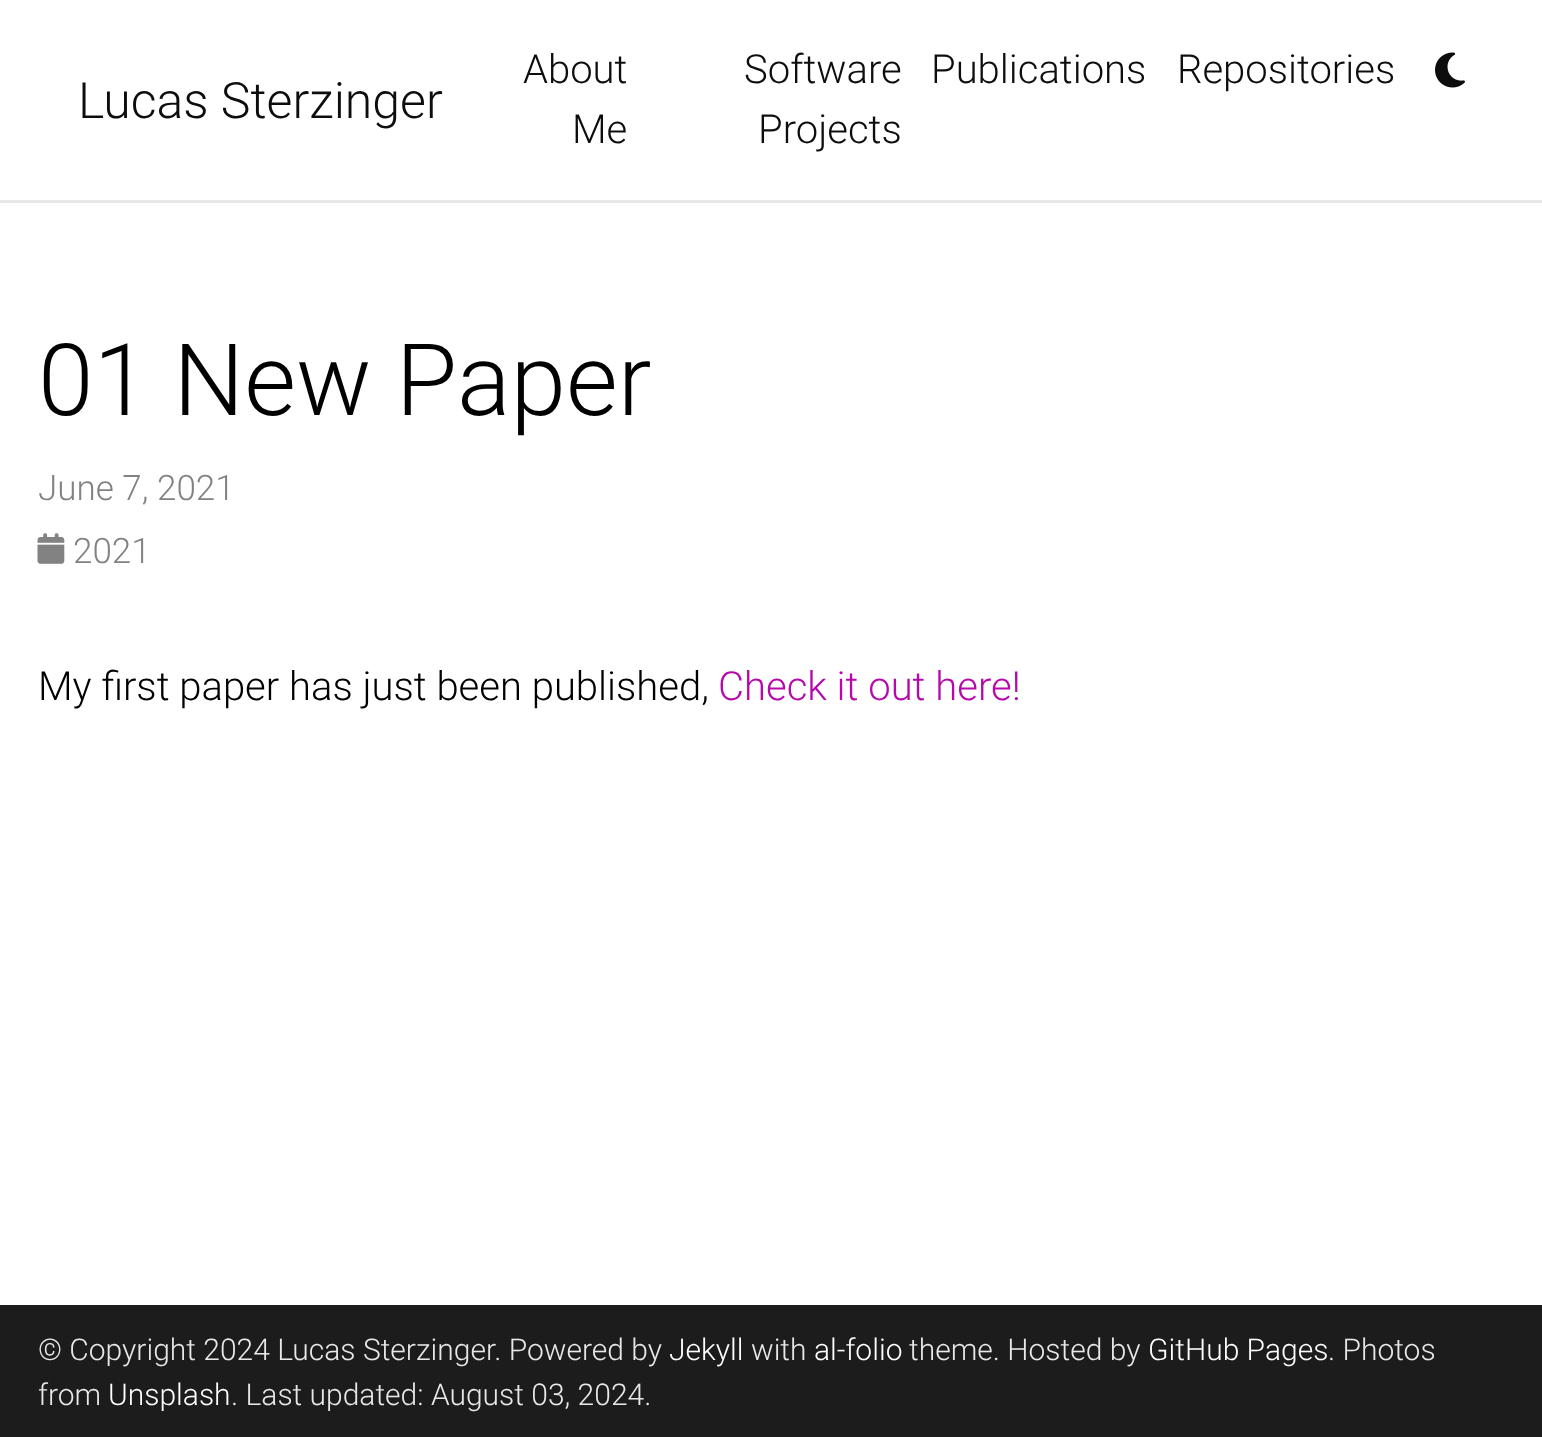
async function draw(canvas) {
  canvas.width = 1542
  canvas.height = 1437
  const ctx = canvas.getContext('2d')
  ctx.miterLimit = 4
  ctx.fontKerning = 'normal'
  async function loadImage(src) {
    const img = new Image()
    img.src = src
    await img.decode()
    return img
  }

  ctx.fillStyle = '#fff'
  ctx.fillRect(0, 0, 1542, 1437)
  ctx.fillStyle = '#e7e7e7'
  ctx.fillRect(0, 200, 1542, 3)
  ctx.font = '300 50px Roboto'
  ctx.fillStyle = '#0d0d0d'
  ctx.fillText('Lucas Sterzinger', 78, 118)
  ctx.font = '300 40px Roboto'
  ctx.fillText('About', 523, 83)
  ctx.fillText('Me', 572, 143)
  ctx.fillText('Software', 744, 83)
  ctx.fillText('Projects', 758, 143)
  ctx.fillText('Publications', 931, 83)
  ctx.fillText('Repositories', 1177, 83)
  ctx.drawImage(await loadImage('image0.png'), 1435, 52, 30, 36)
  ctx.font = '300 100px Roboto'
  ctx.fillStyle = '#000'
  ctx.fillText('01 New Paper', 38, 415)
  ctx.font = '300 35px Roboto'
  ctx.fillStyle = '#828282'
  ctx.fillText('June 7, 2021', 38, 500)
  ctx.drawImage(await loadImage('image1.png'), 37, 533, 28, 31)
  ctx.fillText('2021', 73, 563)
  ctx.font = '300 40px Roboto'
  ctx.fillStyle = '#000'
  ctx.fillText('My first paper has just been published,', 38, 700)
  ctx.fillStyle = '#b509ac'
  ctx.fillText('Check it out here!', 718, 700)
  ctx.fillStyle = '#1c1c1d'
  ctx.fillRect(0, 1305, 1542, 132)
  ctx.font = '300 30px Roboto'
  ctx.fillStyle = '#e8e8e8'
  ctx.fillText('© Copyright 2024 Lucas Sterzinger. Powered by', 38, 1360)
  ctx.fillStyle = '#fff'
  ctx.fillText('Jekyll', 669, 1360)
  ctx.fillStyle = '#e8e8e8'
  ctx.fillText('with', 751, 1360)
  ctx.fillStyle = '#fff'
  ctx.fillText('al-folio', 814, 1360)
  ctx.fillStyle = '#e8e8e8'
  ctx.fillText('theme. Hosted by', 909, 1360)
  ctx.fillStyle = '#fff'
  ctx.fillText('GitHub Pages', 1148, 1360)
  ctx.fillStyle = '#e8e8e8'
  ctx.fillText('. Photos', 1328, 1360)
  ctx.fillText('from', 38, 1405)
  ctx.fillStyle = '#fff'
  ctx.fillText('Unsplash', 108, 1405)
  ctx.fillStyle = '#e8e8e8'
  ctx.fillText('. Last updated: August 03, 2024.', 231, 1405)
}

draw(document.querySelector('canvas'))
